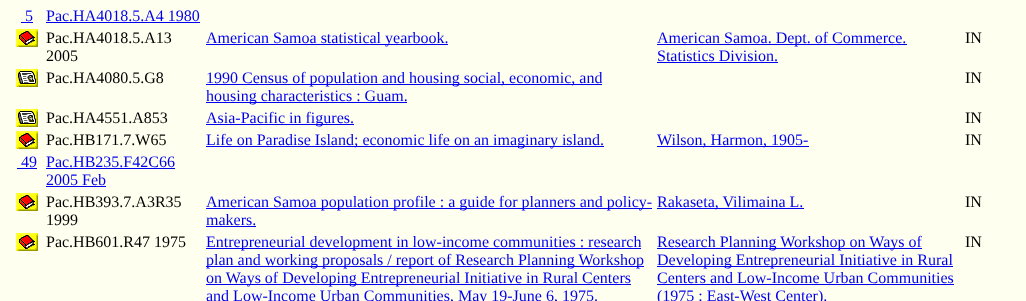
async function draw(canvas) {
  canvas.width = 1026
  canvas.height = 301
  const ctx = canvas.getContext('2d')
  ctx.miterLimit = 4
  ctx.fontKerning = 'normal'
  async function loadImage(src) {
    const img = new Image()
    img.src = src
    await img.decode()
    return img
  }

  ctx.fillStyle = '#ffffef'
  ctx.fillRect(0, 0, 1026, 301)
  ctx.font = '16px Liberation Serif'
  ctx.fillStyle = '#00e'
  ctx.fillText('5', 25, 21)
  ctx.fillRect(21, 22, 12, 1)
  ctx.fillText('Pac.HA4018.5.A4 1980', 46, 21)
  ctx.fillRect(46, 22, 154, 1)
  ctx.drawImage(await loadImage('image0.png'), 16, 29, 22, 18)
  ctx.fillStyle = '#000'
  ctx.fillText('Pac.HA4018.5.A13', 46, 43)
  ctx.fillText('2005', 46, 61)
  ctx.fillStyle = '#00e'
  ctx.fillRect(206, 44, 242, 1)
  ctx.fillText('American Samoa statistical yearbook.', 206, 43)
  ctx.fillRect(657, 44, 250, 1)
  ctx.fillText('American Samoa. Dept. of Commerce.', 657, 43)
  ctx.fillText('Statistics Division.', 657, 61)
  ctx.fillRect(657, 62, 121, 1)
  ctx.fillStyle = '#000'
  ctx.fillText('IN', 965, 43)
  ctx.drawImage(await loadImage('image1.png'), 16, 69, 22, 18)
  ctx.fillText('Pac.HA4080.5.G8', 46, 83)
  ctx.fillStyle = '#00e'
  ctx.fillRect(206, 84, 396, 1)
  ctx.fillText('1990 Census of population and housing social, economic, and', 206, 83)
  ctx.fillRect(206, 102, 201, 1)
  ctx.fillText('housing characteristics : Guam.', 206, 101)
  ctx.fillStyle = '#000'
  ctx.fillText('IN', 965, 83)
  ctx.drawImage(await loadImage('image1.png'), 16, 109, 22, 18)
  ctx.fillText('Pac.HA4551.A853', 46, 123)
  ctx.fillStyle = '#00e'
  ctx.fillRect(206, 124, 148, 1)
  ctx.fillText('Asia-Pacific in figures.', 206, 123)
  ctx.fillStyle = '#000'
  ctx.fillText('IN', 965, 123)
  ctx.drawImage(await loadImage('image0.png'), 16, 131, 22, 18)
  ctx.fillText('Pac.HB171.7.W65', 46, 145)
  ctx.fillStyle = '#00e'
  ctx.fillRect(206, 146, 398, 1)
  ctx.fillText('Life on Paradise Island; economic life on an imaginary island.', 206, 145)
  ctx.fillRect(657, 146, 152, 1)
  ctx.fillText('Wilson, Harmon, 1905-', 657, 145)
  ctx.fillStyle = '#000'
  ctx.fillText('IN', 965, 145)
  ctx.fillStyle = '#00e'
  ctx.fillText('49', 21, 167)
  ctx.fillRect(17, 168, 20, 1)
  ctx.fillText('Pac.HB235.F42C66', 46, 167)
  ctx.fillRect(46, 168, 129, 1)
  ctx.fillText('2005 Feb', 46, 185)
  ctx.fillRect(46, 186, 60, 1)
  ctx.drawImage(await loadImage('image0.png'), 16, 193, 22, 18)
  ctx.fillStyle = '#000'
  ctx.fillText('Pac.HB393.7.A3R35', 46, 207)
  ctx.fillText('1999', 46, 225)
  ctx.fillStyle = '#00e'
  ctx.fillRect(206, 208, 446, 1)
  ctx.fillText('American Samoa population profile : a guide for planners and policy-', 206, 207)
  ctx.fillText('makers.', 206, 225)
  ctx.fillRect(206, 226, 50, 1)
  ctx.fillRect(657, 208, 147, 1)
  ctx.fillText('Rakaseta, Vilimaina L.', 657, 207)
  ctx.fillStyle = '#000'
  ctx.fillText('IN', 965, 207)
  ctx.drawImage(await loadImage('image0.png'), 16, 233, 22, 18)
  ctx.fillText('Pac.HB601.R47 1975', 46, 247)
  ctx.fillStyle = '#00e'
  ctx.fillRect(206, 248, 435, 1)
  ctx.fillText('Entrepreneurial development in low-income communities : research', 206, 247)
  ctx.fillRect(206, 266, 438, 1)
  ctx.fillText('plan and working proposals / report of Research Planning Workshop', 206, 265)
  ctx.fillRect(206, 284, 425, 1)
  ctx.fillText('on Ways of Developing Entrepreneurial Initiative in Rural Centers', 206, 283)
  ctx.fillText('and Low-Income Urban Communities, May 19-June 6, 1975.', 206, 301)
  ctx.fillRect(657, 248, 265, 1)
  ctx.fillText('Research Planning Workshop on Ways of', 657, 247)
  ctx.fillRect(657, 266, 296, 1)
  ctx.fillText('Developing Entrepreneurial Initiative in Rural', 657, 265)
  ctx.fillText('Centers and Low-Income Urban Communities', 657, 283)
  ctx.fillRect(657, 284, 297, 1)
  ctx.fillText('(1975 : East-West Center).', 657, 301)
  ctx.fillStyle = '#000'
  ctx.fillText('IN', 965, 247)
}

draw(document.querySelector('canvas'))
